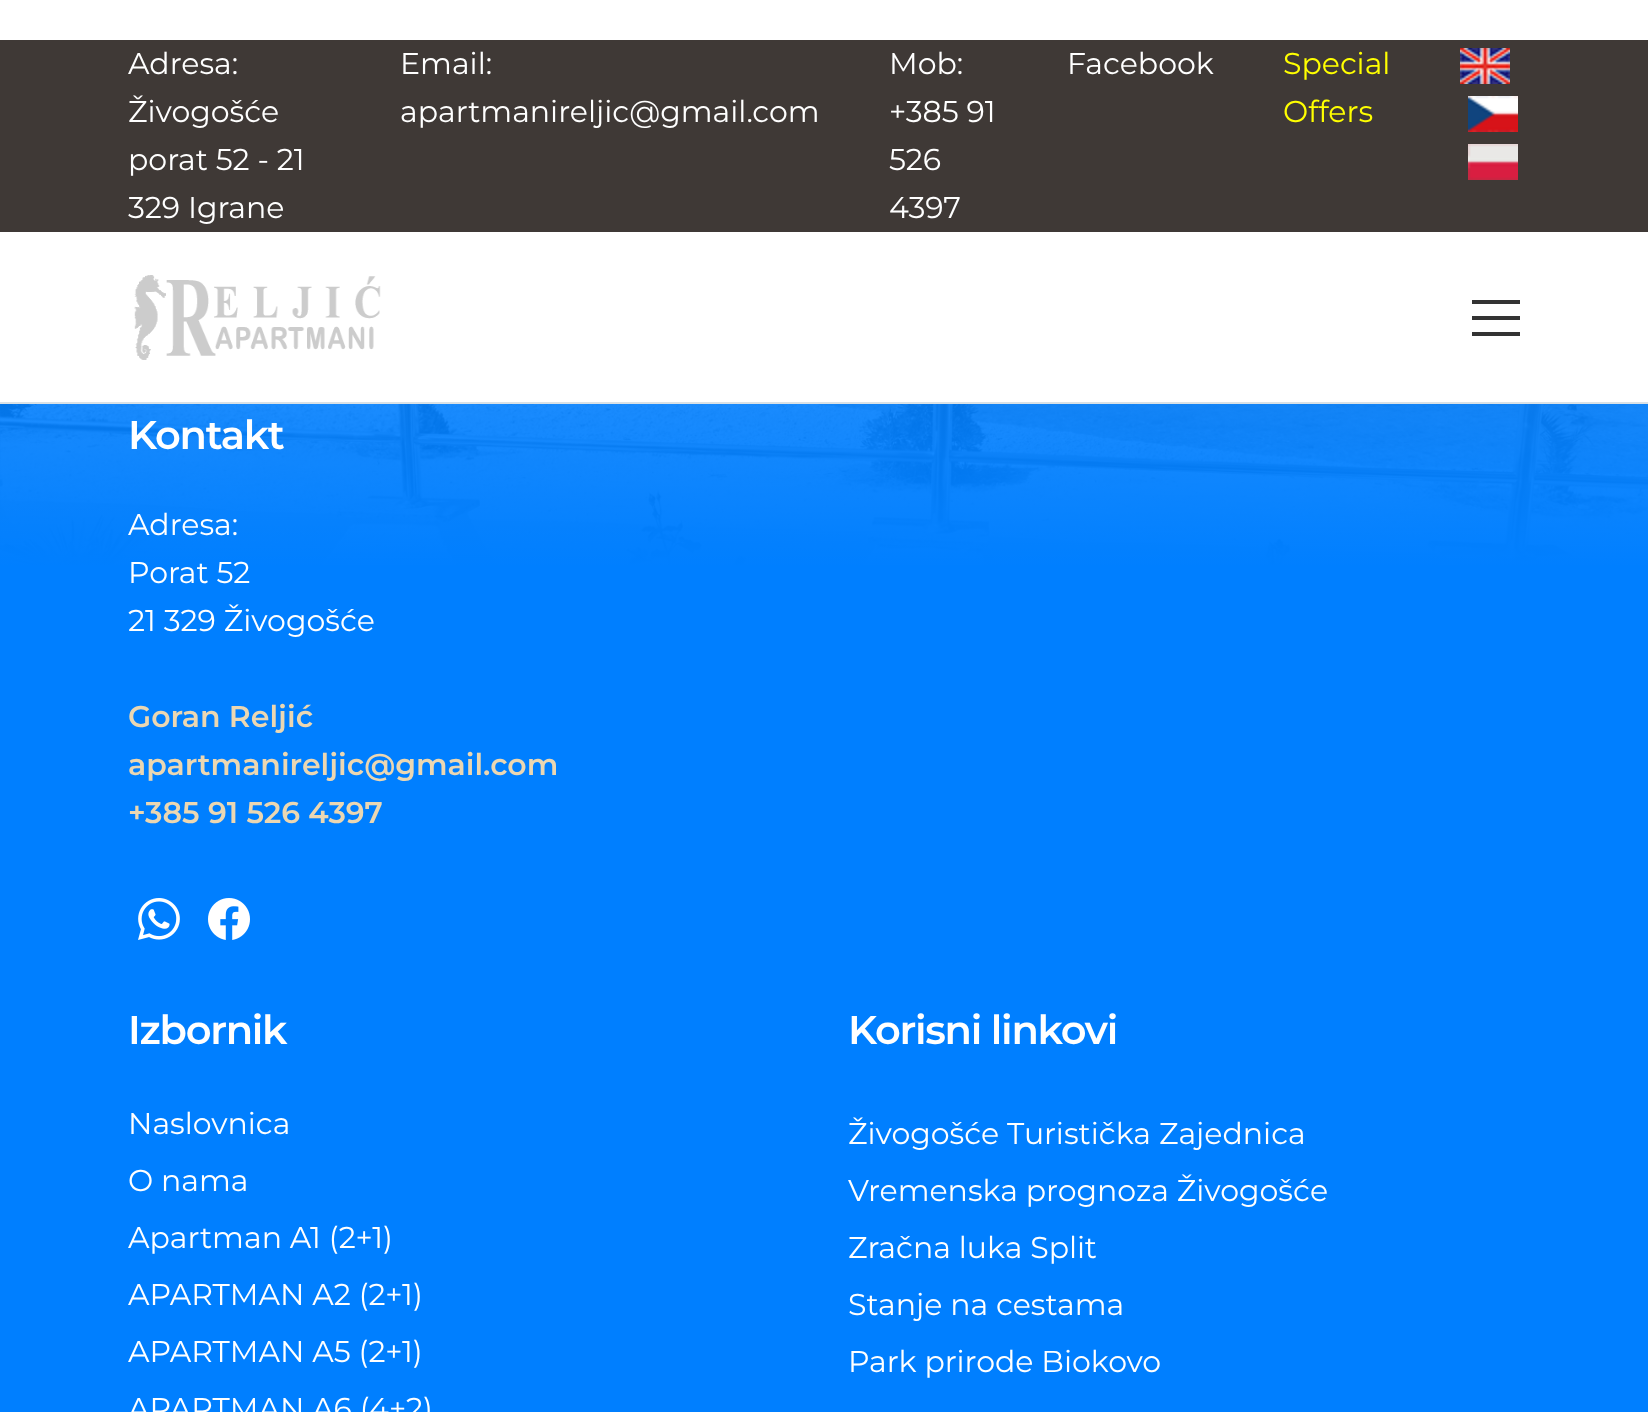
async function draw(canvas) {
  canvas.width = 1648
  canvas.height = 1412
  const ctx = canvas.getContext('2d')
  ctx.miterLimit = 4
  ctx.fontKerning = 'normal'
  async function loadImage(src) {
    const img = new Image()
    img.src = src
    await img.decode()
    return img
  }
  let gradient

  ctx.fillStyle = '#007fff'
  ctx.fillRect(0, 0, 1648, 1412)
  ctx.fillStyle = '#fff'
  ctx.fillRect(0, 0, 1648, 402)
  ctx.fillStyle = '#d9e1e6'
  ctx.fillRect(0, 402, 1648, 2)
  ctx.fillStyle = '#3f3936'
  ctx.fillRect(0, 40, 1648, 192)
  ctx.font = '30px Montserrat'
  ctx.fillStyle = '#fff'
  ctx.fillText('Adresa:', 128, 74)
  ctx.fillText('Živogošće', 128, 122)
  ctx.fillText('porat 52 - 21', 128, 170)
  ctx.fillText('329 Igrane', 128, 218)
  ctx.fillText('Email:', 400, 74)
  ctx.fillText('apartmanireljic@gmail.com', 400, 122)
  ctx.fillText('Mob:', 889, 74)
  ctx.fillText('+385 91', 889, 122)
  ctx.fillText('526', 889, 170)
  ctx.fillText('4397', 889, 218)
  ctx.fillText('Facebook', 1067, 74)
  ctx.fillStyle = '#ff0'
  ctx.fillText('Special', 1283, 74)
  ctx.fillText('Offers', 1283, 122)
  ctx.drawImage(await loadImage('image0.png'), 1460, 48, 50, 36)
  ctx.drawImage(await loadImage('image1.png'), 1468, 96, 50, 36)
  ctx.drawImage(await loadImage('image2.png'), 1468, 144, 50, 36)
  ctx.drawImage(await loadImage('image3.png'), 134, 275, 247, 85)
  ctx.fillStyle = '#333'
  ctx.fillRect(1472, 316, 48, 4)
  ctx.fillRect(1472, 300, 48, 4)
  ctx.fillRect(1472, 332, 48, 4)
  ctx.drawImage(await loadImage('image4.png'), 0, 404, 1648, 161)
  gradient = ctx.createLinearGradient(824, 108, 824, 568)
  gradient.addColorStop(0, '#007fff00')
  gradient.addColorStop(1, '#007fff')
  ctx.fillStyle = gradient
  ctx.fillRect(0, 404, 1648, 161)
  ctx.letterSpacing = '-1.25px'
  ctx.font = '600 40px Montserrat'
  ctx.fillStyle = '#fff'
  ctx.fillText('Kontakt', 128, 449)
  ctx.letterSpacing = '0px'
  ctx.font = '30px Montserrat'
  ctx.fillText('Adresa:', 128, 535)
  ctx.fillText('Porat 52', 128, 583)
  ctx.fillText('21 329 Živogošće', 128, 631)
  ctx.font = '600 30px Montserrat'
  ctx.fillStyle = '#ebd7b2'
  ctx.fillText('Goran Reljić', 128, 727)
  ctx.fillText('apartmanireljic@gmail.com', 128, 775)
  ctx.fillText('+385 91 526 4397', 128, 823)
  ctx.drawImage(await loadImage('image5.png'), 138, 898, 42, 42)
  ctx.drawImage(await loadImage('image6.png'), 208, 898, 42, 42)
  ctx.letterSpacing = '-1.25px'
  ctx.font = '600 40px Montserrat'
  ctx.fillStyle = '#fff'
  ctx.fillText('Izbornik', 128, 1044)
  ctx.letterSpacing = '0px'
  ctx.font = '30px Montserrat'
  ctx.fillText('Naslovnica', 128, 1134)
  ctx.fillText('O nama', 128, 1191)
  ctx.fillText('Apartman A1 (2+1)', 128, 1248)
  ctx.fillText('APARTMAN A2 (2+1)', 128, 1305)
  ctx.fillText('APARTMAN A5 (2+1)', 128, 1362)
  ctx.fillText('APARTMAN A6 (4+2)', 128, 1419)
  ctx.letterSpacing = '-1.25px'
  ctx.font = '600 40px Montserrat'
  ctx.fillText('Korisni linkovi', 848, 1044)
  ctx.letterSpacing = '0px'
  ctx.font = '30px Montserrat'
  ctx.fillText('Živogošće Turistička Zajednica', 848, 1144)
  ctx.fillText('Vremenska prognoza Živogošće', 848, 1201)
  ctx.fillText('Zračna luka Split', 848, 1258)
  ctx.fillText('Stanje na cestama', 848, 1315)
  ctx.fillText('Park prirode Biokovo', 848, 1372)
}

draw(document.querySelector('canvas'))
